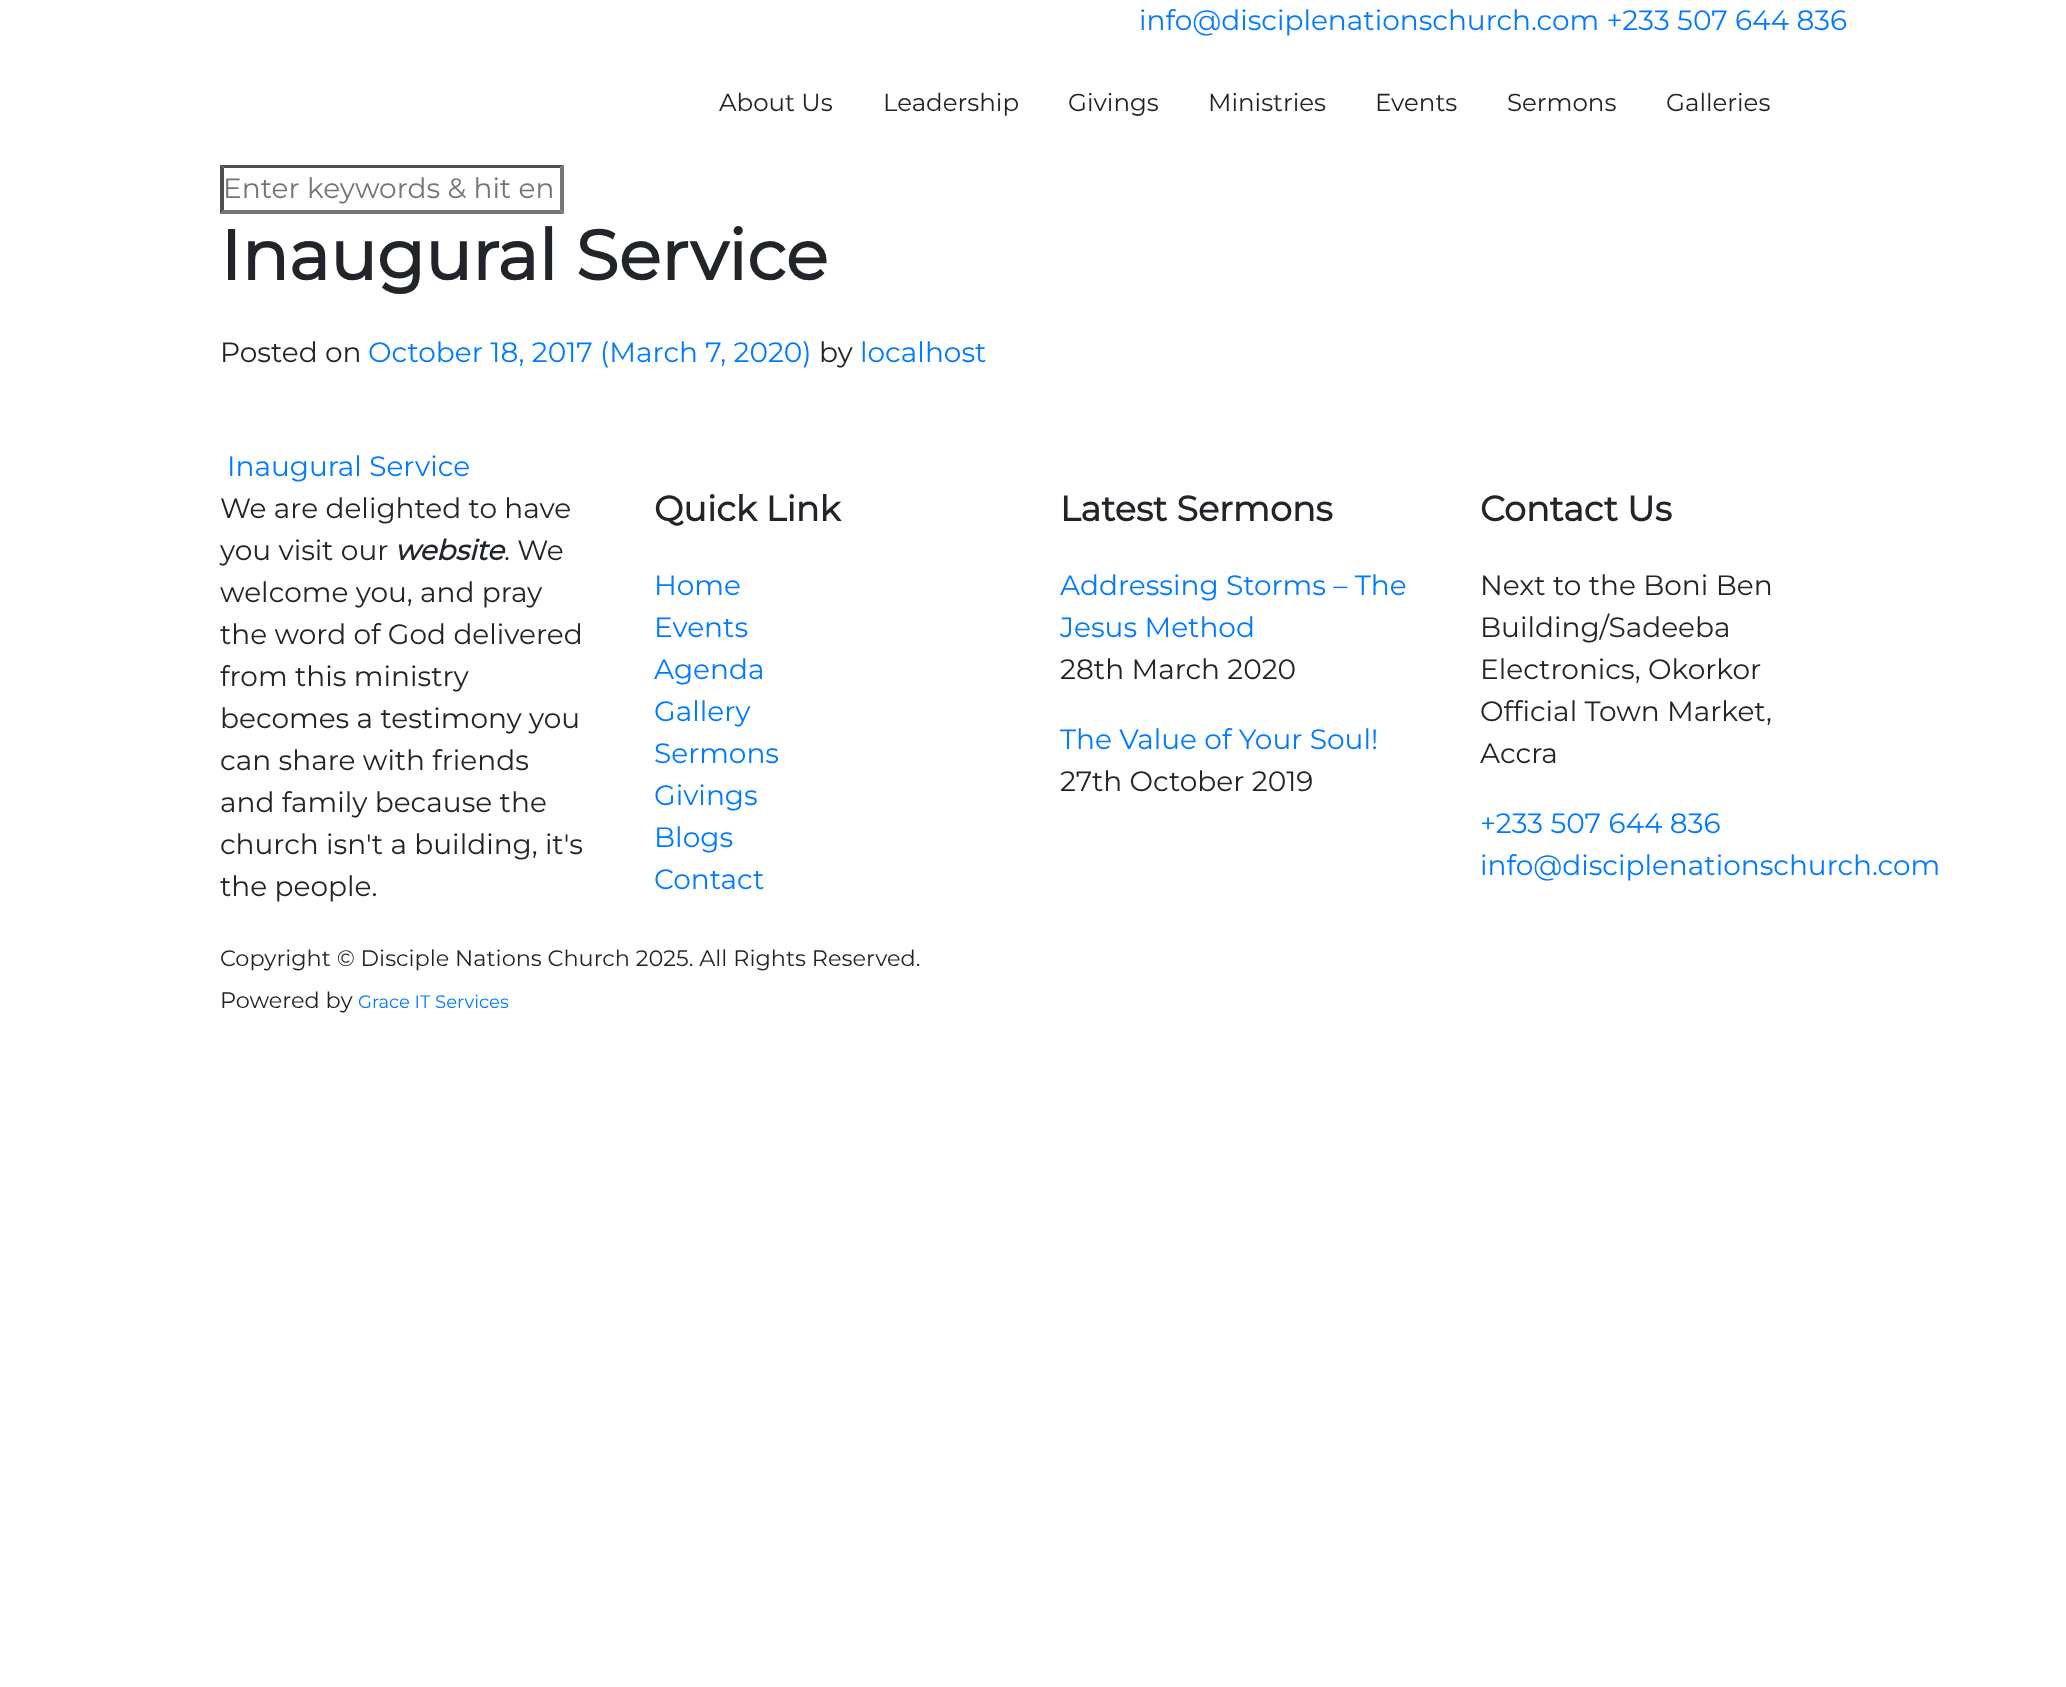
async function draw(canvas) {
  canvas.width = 2066
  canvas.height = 1687
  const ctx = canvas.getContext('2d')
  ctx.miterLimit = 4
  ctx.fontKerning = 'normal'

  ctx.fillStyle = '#fff'
  ctx.fillRect(0, 0, 2066, 1687)
  ctx.font = '100 28px Montserrat'
  ctx.fillStyle = '#007bff'
  ctx.fillText('info@disciplenationschurch.com +233 507 644 836', 1139, 30)
  ctx.fillStyle = '#4f4f4f'
  ctx.beginPath()
  ctx.moveTo(220, 164)
  ctx.lineTo(564, 164)
  ctx.lineTo(560, 168)
  ctx.lineTo(224, 168)
  ctx.closePath()
  ctx.fill()
  ctx.fillStyle = '#767676'
  ctx.beginPath()
  ctx.moveTo(564, 164)
  ctx.lineTo(564, 214)
  ctx.lineTo(560, 210)
  ctx.lineTo(560, 168)
  ctx.closePath()
  ctx.fill()
  ctx.beginPath()
  ctx.moveTo(564, 214)
  ctx.lineTo(220, 214)
  ctx.lineTo(224, 210)
  ctx.lineTo(560, 210)
  ctx.closePath()
  ctx.fill()
  ctx.fillStyle = '#4f4f4f'
  ctx.beginPath()
  ctx.moveTo(220, 214)
  ctx.lineTo(220, 164)
  ctx.lineTo(224, 168)
  ctx.lineTo(224, 210)
  ctx.closePath()
  ctx.fill()
  ctx.fillStyle = '#fff'
  ctx.fillRect(220, 164, 344, 1)
  ctx.font = '100 24.5px Montserrat'
  ctx.fillStyle = '#232323'
  ctx.fillText('About Us', 719, 111)
  ctx.fillText('Leadership', 883, 111)
  ctx.fillText('Givings', 1068, 111)
  ctx.fillText('Ministries', 1208, 111)
  ctx.fillText('Events', 1375, 111)
  ctx.fillText('Sermons', 1507, 111)
  ctx.fillText('Galleries', 1666, 111)
  ctx.font = '100 28px Montserrat'
  ctx.fillStyle = '#757575'
  ctx.fillText('Enter keywords & hit en', 223, 198)
  ctx.font = 'bold 70px Montserrat'
  ctx.fillStyle = '#212529'
  ctx.fillText('Inaugural Service', 220, 280)
  ctx.font = '100 28px Montserrat'
  ctx.fillText('Posted on', 220, 362)
  ctx.fillStyle = '#007bff'
  ctx.fillText('October 18, 2017 (March 7, 2020)', 368, 362)
  ctx.fillStyle = '#212529'
  ctx.fillText('by', 819, 362)
  ctx.fillStyle = '#007bff'
  ctx.fillText('localhost', 860, 362)
  ctx.fillText('Inaugural Service', 227, 476)
  ctx.fillStyle = '#212529'
  ctx.fillText('We are delighted to have', 220, 518)
  ctx.fillText('you visit our', 220, 560)
  ctx.font = 'italic bold 28px Montserrat'
  ctx.fillText('website', 395, 560)
  ctx.font = '100 28px Montserrat'
  ctx.fillText('. We', 504, 560)
  ctx.fillText('welcome you, and pray', 220, 602)
  ctx.fillText('the word of God delivered', 220, 644)
  ctx.fillText('from this ministry', 220, 686)
  ctx.fillText('becomes a testimony you', 220, 728)
  ctx.fillText('can share with friends', 220, 770)
  ctx.fillText('and family because the', 220, 812)
  ctx.fillText('church isn\'t a building, it\'s', 220, 854)
  ctx.fillText('the people.', 220, 896)
  ctx.font = 'bold 35px Montserrat'
  ctx.fillText('Quick Link', 654, 521)
  ctx.font = '100 28px Montserrat'
  ctx.fillStyle = '#007bff'
  ctx.fillText('Home', 654, 595)
  ctx.fillText('Events', 654, 637)
  ctx.fillText('Agenda', 654, 679)
  ctx.fillText('Gallery', 654, 721)
  ctx.fillText('Sermons', 654, 763)
  ctx.fillText('Givings', 654, 805)
  ctx.fillText('Blogs', 654, 847)
  ctx.fillText('Contact', 654, 889)
  ctx.font = 'bold 35px Montserrat'
  ctx.fillStyle = '#212529'
  ctx.fillText('Latest Sermons', 1060, 521)
  ctx.font = '100 28px Montserrat'
  ctx.fillStyle = '#007bff'
  ctx.fillText('Addressing Storms – The', 1060, 595)
  ctx.fillText('Jesus Method', 1060, 637)
  ctx.fillStyle = '#212529'
  ctx.fillText('28th March 2020', 1060, 679)
  ctx.fillStyle = '#007bff'
  ctx.fillText('The Value of Your Soul!', 1060, 749)
  ctx.fillStyle = '#212529'
  ctx.fillText('27th October 2019', 1060, 791)
  ctx.font = 'bold 35px Montserrat'
  ctx.fillText('Contact Us', 1480, 521)
  ctx.font = '100 28px Montserrat'
  ctx.fillText('Next to the Boni Ben', 1480, 595)
  ctx.fillText('Building/Sadeeba', 1480, 637)
  ctx.fillText('Electronics, Okorkor', 1480, 679)
  ctx.fillText('Official Town Market,', 1480, 721)
  ctx.fillText('Accra', 1480, 763)
  ctx.fillStyle = '#007bff'
  ctx.fillText('+233 507 644 836', 1480, 833)
  ctx.fillText('info@disciplenationschurch.com', 1480, 875)
  ctx.font = '100 22.4px Montserrat'
  ctx.fillStyle = '#212529'
  ctx.fillText('Copyright © Disciple Nations Church 2025. All Rights Reserved.', 220, 966)
  ctx.fillText('Powered by', 220, 1008)
  ctx.font = '100 18px Montserrat'
  ctx.fillStyle = '#007bff'
  ctx.fillText('Grace IT Services', 358, 1008)
}

draw(document.querySelector('canvas'))
